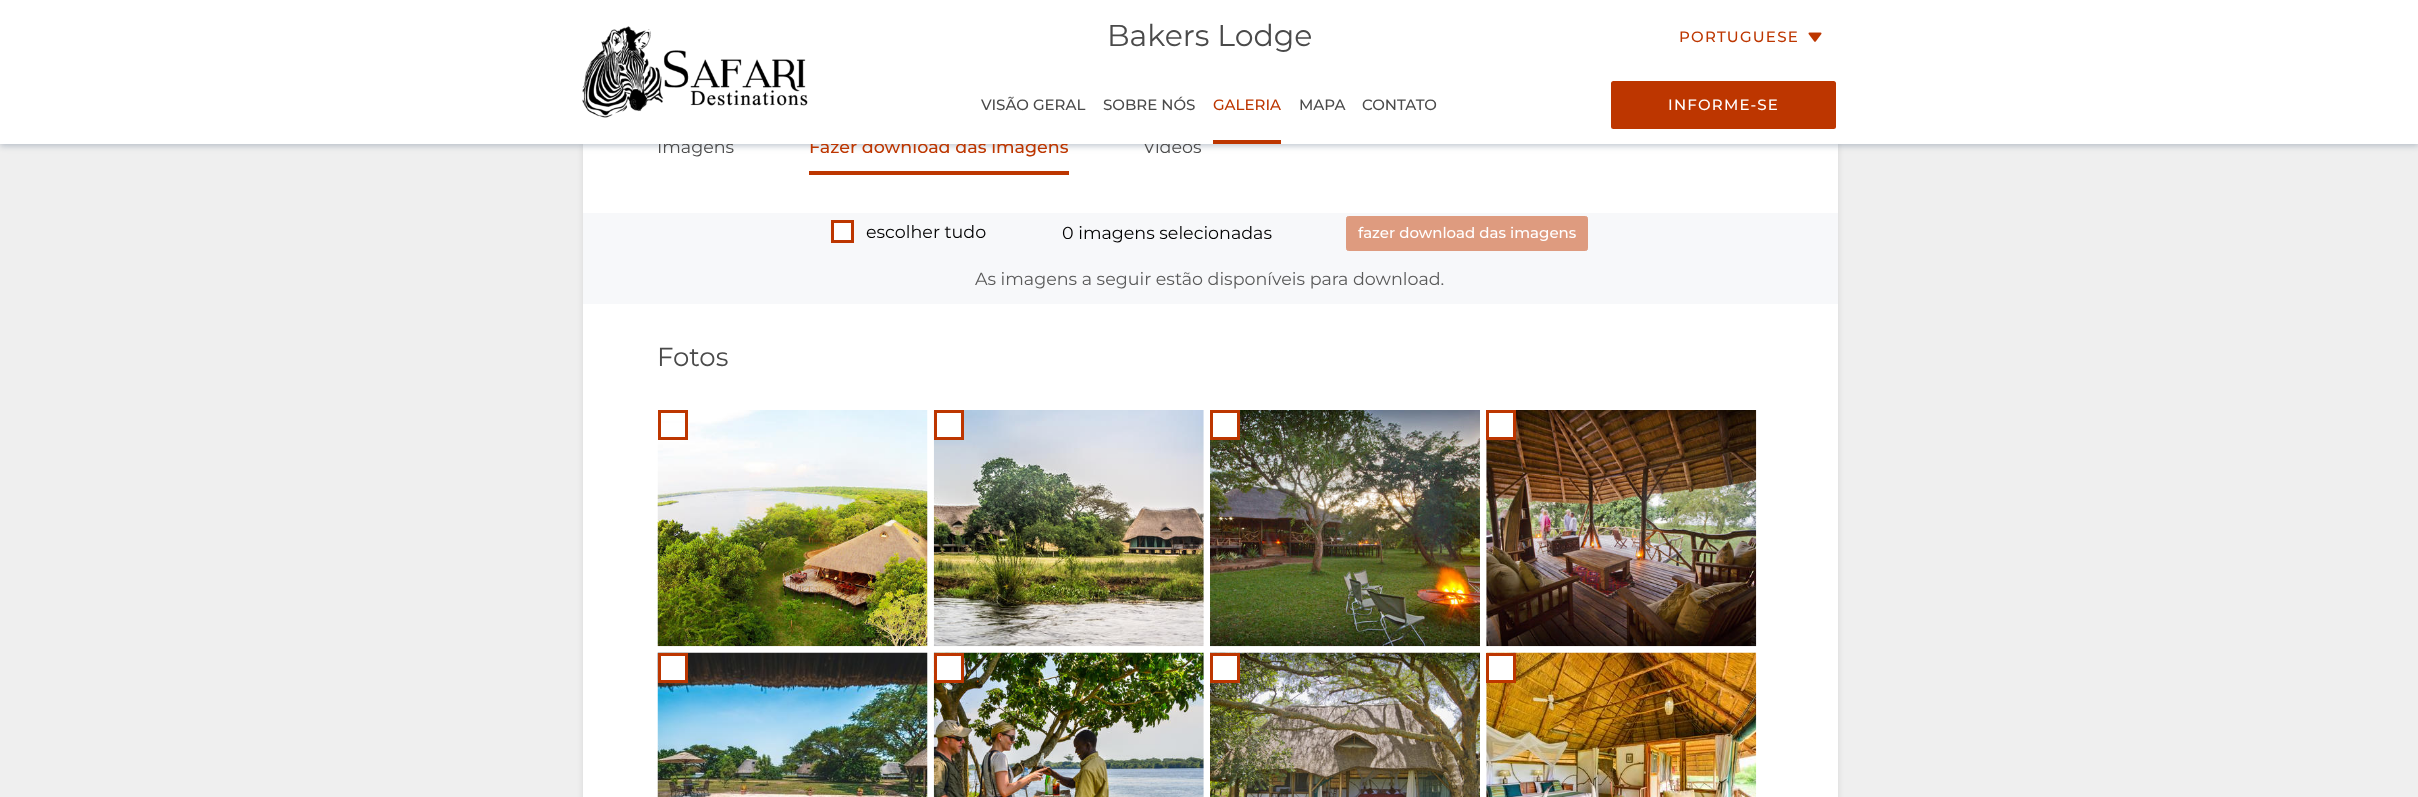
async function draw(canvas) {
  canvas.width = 2418
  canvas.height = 797
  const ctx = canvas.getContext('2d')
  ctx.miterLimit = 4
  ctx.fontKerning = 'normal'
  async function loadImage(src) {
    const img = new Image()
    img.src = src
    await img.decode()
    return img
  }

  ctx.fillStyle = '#efefef'
  ctx.fillRect(0, 0, 2418, 797)
  ctx.fillStyle = '#0000001a'
  ctx.filter = 'blur(3px)'
  ctx.beginPath()
  ctx.rect(583, 115, 1255, 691)
  ctx.fill()
  ctx.filter = 'none'
  ctx.fillStyle = '#fff'
  ctx.fillRect(583, 144, 1255, 653)
  ctx.fillStyle = '#7f8ea080'
  ctx.filter = 'blur(3px)'
  ctx.beginPath()
  ctx.rect(0, 3, 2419, 143)
  ctx.fill()
  ctx.filter = 'none'
  ctx.font = '17.5px Montserrat'
  ctx.fillStyle = '#4a4a4a'
  ctx.fillText('Imagens', 657, 153)
  ctx.font = '500 17.5px Montserrat'
  ctx.fillStyle = '#bd3600'
  ctx.fillText('Fazer download das imagens', 809, 153)
  ctx.font = '17.5px Montserrat'
  ctx.fillStyle = '#4a4a4a'
  ctx.fillText('Vídeos', 1143, 153)
  ctx.fillStyle = '#fff'
  ctx.fillRect(0, 0, 2418, 144)
  ctx.drawImage(await loadImage('image0.png'), 582, 26, 226, 92)
  ctx.font = '30px Montserrat'
  ctx.fillStyle = '#4a4a4a'
  ctx.fillText('Bakers Lodge', 1107, 46)
  ctx.font = '500 15px Montserrat'
  ctx.fillText('VISÃO GERAL', 981, 110)
  ctx.fillText('SOBRE NÓS', 1103, 110)
  ctx.fillStyle = '#bd3600'
  ctx.fillText('GALERIA', 1213, 110)
  ctx.fillRect(1213, 140, 68, 4)
  ctx.fillStyle = '#4a4a4a'
  ctx.fillText('MAPA', 1299, 110)
  ctx.fillText('CONTATO', 1362, 110)
  ctx.letterSpacing = '1.25px'
  ctx.fillStyle = '#bd3600'
  ctx.fillText('PORTUGUESE', 1679, 42)
  ctx.drawImage(await loadImage('image1.png'), 1808, 32, 14, 10)
  ctx.beginPath()
  ctx.roundRect(1611, 81, 225, 48, 2.5)
  ctx.fill()
  ctx.fillStyle = '#fff'
  ctx.fillText('INFORME-SE', 1668, 110)
  ctx.fillStyle = '#bd3600'
  ctx.fillRect(809, 171, 260, 4)
  ctx.fillStyle = '#f7f8fa'
  ctx.fillRect(583, 213, 1255, 91)
  ctx.fillStyle = '#fff'
  ctx.beginPath()
  ctx.rect(832.5, 221.5, 20, 20)
  ctx.fill()
  ctx.strokeStyle = '#bd3600'
  ctx.lineWidth = 3
  ctx.stroke()
  ctx.letterSpacing = '0px'
  ctx.font = '17.5px Montserrat'
  ctx.fillStyle = '#000'
  ctx.fillText('escolher tudo', 866, 238)
  ctx.fillText('0 imagens selecionadas', 1062, 239)
  ctx.fillStyle = '#de9b7f'
  ctx.beginPath()
  ctx.roundRect(1346.5, 216.5, 241, 34, 2)
  ctx.fill()
  ctx.strokeStyle = '#de9b7f'
  ctx.lineWidth = 1
  ctx.stroke()
  ctx.font = '500 15px Montserrat'
  ctx.fillStyle = '#fff'
  ctx.fillText('fazer download das imagens', 1358, 238)
  ctx.font = '17.5px Montserrat'
  ctx.fillStyle = '#5a5a5a'
  ctx.fillText('As imagens a seguir estão disponíveis para download.', 975, 285)
  ctx.font = '26px Montserrat'
  ctx.fillStyle = '#4a4a4a'
  ctx.fillText('Fotos', 657, 366)
  ctx.drawImage(await loadImage('image2.png'), 657, 410, 271, 237)
  ctx.fillStyle = '#fff'
  ctx.fillRect(661, 423, 24, 12)
  ctx.strokeStyle = '#bd3600'
  ctx.lineWidth = 3
  ctx.strokeRect(659.5, 411.5, 27, 27)
  ctx.drawImage(await loadImage('image3.png'), 933, 410, 271, 237)
  ctx.beginPath()
  ctx.rect(935.5, 411.5, 27, 27)
  ctx.fill()
  ctx.stroke()
  ctx.drawImage(await loadImage('image4.png'), 1210, 410, 270, 237)
  ctx.beginPath()
  ctx.rect(1211.5, 411.5, 27, 27)
  ctx.fill()
  ctx.stroke()
  ctx.drawImage(await loadImage('image5.png'), 1486, 410, 271, 237)
  ctx.beginPath()
  ctx.rect(1487.5, 411.5, 27, 27)
  ctx.fill()
  ctx.stroke()
  ctx.drawImage(await loadImage('image6.png'), 657, 652, 271, 145)
  ctx.beginPath()
  ctx.rect(659.5, 654.5, 27, 27)
  ctx.fill()
  ctx.stroke()
  ctx.drawImage(await loadImage('image7.png'), 933, 652, 271, 145)
  ctx.beginPath()
  ctx.rect(935.5, 654.5, 27, 27)
  ctx.fill()
  ctx.stroke()
  ctx.drawImage(await loadImage('image8.png'), 1210, 652, 270, 145)
  ctx.beginPath()
  ctx.rect(1211.5, 654.5, 27, 27)
  ctx.fill()
  ctx.stroke()
  ctx.drawImage(await loadImage('image9.png'), 1486, 652, 271, 145)
  ctx.beginPath()
  ctx.rect(1487.5, 654.5, 27, 27)
  ctx.fill()
  ctx.stroke()
}

draw(document.querySelector('canvas'))
